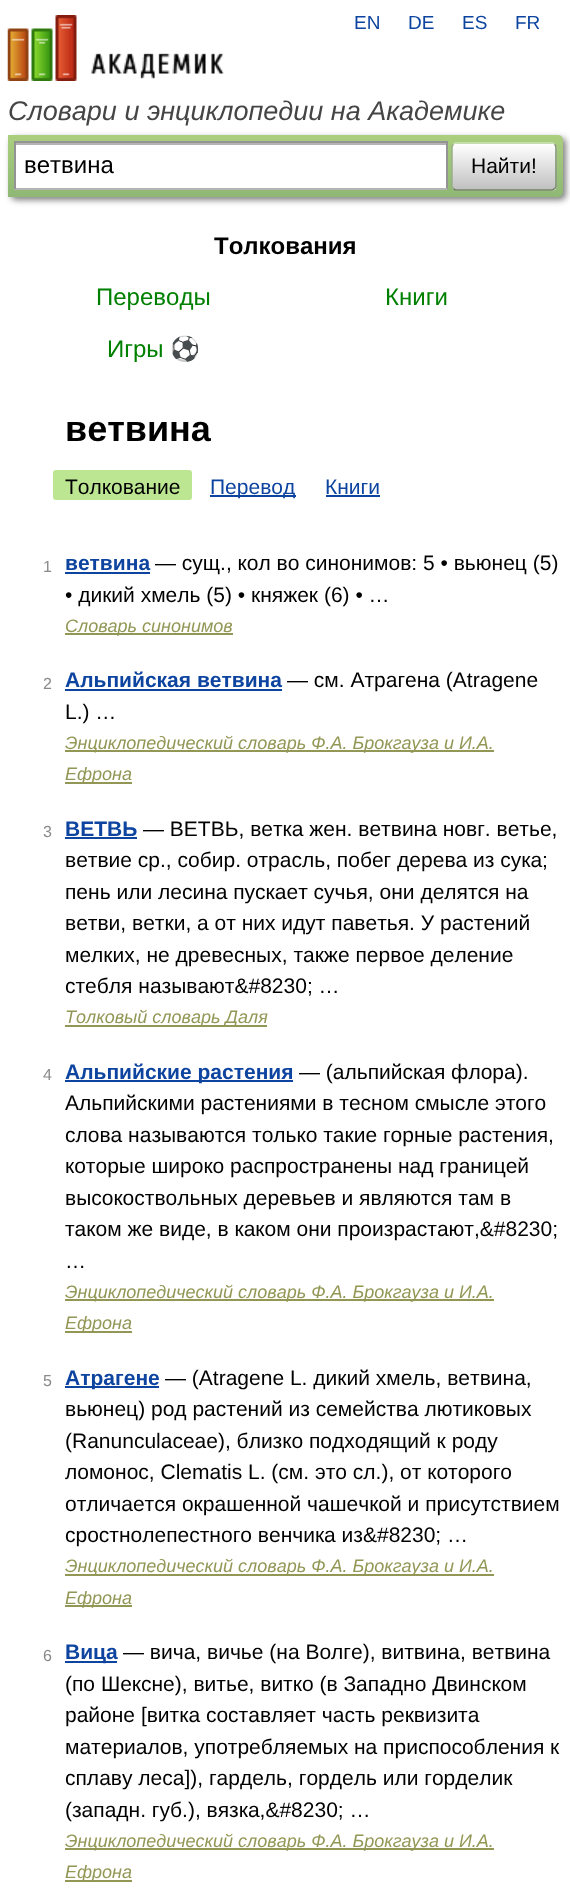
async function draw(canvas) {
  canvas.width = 570
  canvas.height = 1889
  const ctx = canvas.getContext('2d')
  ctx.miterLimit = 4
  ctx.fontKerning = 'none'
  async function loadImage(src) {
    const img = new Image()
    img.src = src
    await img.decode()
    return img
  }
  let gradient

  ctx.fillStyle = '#fff'
  ctx.fillRect(0, 0, 570, 1889)
  ctx.drawImage(await loadImage('image0.png'), 7, 15, 217, 66)
  ctx.font = '19px Liberation Sans'
  ctx.fillStyle = '#0d44a0'
  ctx.fillText('EN', 354, 29)
  ctx.fillText('DE', 408, 29)
  ctx.fillText('ES', 462, 29)
  ctx.fillText('FR', 515, 29)
  ctx.font = 'italic 27px Liberation Sans'
  ctx.fillStyle = '#454545'
  ctx.fillText('Словари и энциклопедии на Академике', 8, 120)
  ctx.fillStyle = '#00000080'
  ctx.filter = 'blur(3px)'
  ctx.beginPath()
  ctx.roundRect(11, 138, 555, 62, 5)
  ctx.fill()
  ctx.filter = 'none'
  gradient = ctx.createLinearGradient(285, 135, 285, 197)
  gradient.addColorStop(0, '#abcf7e')
  gradient.addColorStop(1, '#8eb874')
  ctx.fillStyle = gradient
  ctx.beginPath()
  ctx.roundRect(8, 135, 555, 62, [0, 5, 5, 0])
  ctx.fill()
  ctx.fillStyle = '#fff'
  ctx.fillRect(16, 145, 430, 43)
  ctx.fillStyle = '#b3b3b3'
  ctx.fillRect(15, 143, 431, 2)
  ctx.fillStyle = '#949494'
  ctx.fillRect(14, 141, 433, 2)
  ctx.fillRect(446, 141, 2, 48)
  ctx.fillStyle = '#b4b4b4'
  ctx.fillRect(14, 188, 433, 2)
  ctx.fillStyle = '#949494'
  ctx.fillRect(14, 141, 2, 48)
  ctx.font = '24px Liberation Sans'
  ctx.fillStyle = '#000'
  ctx.fillText('ветвина', 24, 173)
  ctx.save()
  ctx.beginPath()
  ctx.roundRect(452, 143, 105, 48, 5)
  ctx.clip()
  gradient = ctx.createLinearGradient(504, 144, 504, 189)
  gradient.addColorStop(0, '#fff')
  gradient.addColorStop(1, '#c1c1c1')
  ctx.fillStyle = gradient
  ctx.fillRect(452, 144, 105, 45)
  gradient = ctx.createLinearGradient(504, 189, 504, 234)
  gradient.addColorStop(0, '#fff')
  gradient.addColorStop(1, '#c1c1c1')
  ctx.fillStyle = gradient
  ctx.fillRect(452, 189, 105, 2)
  ctx.restore()
  ctx.beginPath()
  ctx.moveTo(453.5, 144.5)
  ctx.bezierCurveTo(454, 143.5, 455, 143, 456, 143)
  ctx.lineTo(552, 143)
  ctx.bezierCurveTo(553, 143, 554, 143.5, 554.5, 144.5)
  ctx.strokeStyle = '#d1e4bc'
  ctx.lineWidth = 1.5
  ctx.stroke()
  ctx.beginPath()
  ctx.moveTo(554.5, 144.5)
  ctx.bezierCurveTo(555.5, 145, 556, 146, 556, 147)
  ctx.lineTo(556, 186)
  ctx.bezierCurveTo(556, 187, 555.5, 188, 554.5, 188.5)
  ctx.strokeStyle = '#7a8e69'
  ctx.stroke()
  ctx.beginPath()
  ctx.moveTo(554.5, 188.5)
  ctx.bezierCurveTo(554, 189.5, 553, 190, 552, 190)
  ctx.lineTo(456, 190)
  ctx.bezierCurveTo(455, 190, 454, 189.5, 453.5, 188.5)
  ctx.strokeStyle = '#5d7250'
  ctx.stroke()
  ctx.beginPath()
  ctx.moveTo(453.5, 188.5)
  ctx.bezierCurveTo(452.5, 188, 452, 187, 452, 186)
  ctx.lineTo(452, 147)
  ctx.bezierCurveTo(452, 146, 452.5, 145, 453.5, 144.5)
  ctx.strokeStyle = '#9aae89'
  ctx.stroke()
  ctx.font = '21px Liberation Sans'
  ctx.fillText('Найти!', 471, 173)
  ctx.font = 'bold 24px Liberation Sans'
  ctx.fillText('Толкования', 214, 254)
  ctx.font = '24px Liberation Sans'
  ctx.fillStyle = '#008000'
  ctx.fillText('Переводы', 96, 305)
  ctx.fillText('Книги', 385, 305)
  ctx.fillText('Игры', 107, 357)
  ctx.font = '24px Noto Color Emoji'
  ctx.fillText('⚽', 170, 357)
  ctx.font = 'bold 36px Liberation Sans'
  ctx.fillStyle = '#000'
  ctx.fillText('ветвина', 65, 441)
  ctx.fillStyle = '#bde693'
  ctx.beginPath()
  ctx.roundRect(53, 470, 139, 30, 3)
  ctx.fill()
  ctx.font = '21px Liberation Sans'
  ctx.fillStyle = '#000'
  ctx.fillText('Толкование', 65, 494)
  ctx.fillStyle = '#0d44a0'
  ctx.fillRect(210, 495, 86, 2)
  ctx.fillText('Перевод', 210, 494)
  ctx.fillText('Книги', 325, 494)
  ctx.fillRect(326, 495, 54, 2)
  ctx.font = '16px Liberation Sans'
  ctx.fillStyle = '#898989'
  ctx.fillText('1', 43, 572)
  ctx.font = 'bold 21px Liberation Sans'
  ctx.fillStyle = '#0d44a0'
  ctx.fillText('ветвина', 65, 570)
  ctx.fillRect(65, 572, 85, 2)
  ctx.font = '21px Liberation Sans'
  ctx.fillStyle = '#000'
  ctx.fillText('— сущ., кол во синонимов: 5 • вьюнец (5)', 155, 570)
  ctx.fillText('• дикий хмель (5) • княжек (6) • …', 65, 602)
  ctx.fillStyle = '#939756'
  ctx.fillRect(65, 633, 168, 2)
  ctx.font = 'italic 18px Liberation Sans'
  ctx.fillText('Словарь синонимов', 65, 632)
  ctx.font = '16px Liberation Sans'
  ctx.fillStyle = '#898989'
  ctx.fillText('2', 43, 689)
  ctx.font = 'bold 21px Liberation Sans'
  ctx.fillStyle = '#0d44a0'
  ctx.fillText('Альпийская ветвина', 65, 687)
  ctx.fillRect(65, 689, 217, 2)
  ctx.font = '21px Liberation Sans'
  ctx.fillStyle = '#000'
  ctx.fillText('— см. Атрагена (Atragene', 287, 687)
  ctx.fillText('L.) …', 65, 719)
  ctx.fillStyle = '#939756'
  ctx.fillRect(65, 750, 429, 2)
  ctx.font = 'italic 18px Liberation Sans'
  ctx.fillText('Энциклопедический словарь Ф.А. Брокгауза и И.А.', 65, 749)
  ctx.fillRect(65, 782, 67, 2)
  ctx.fillText('Ефрона', 65, 780)
  ctx.font = '16px Liberation Sans'
  ctx.fillStyle = '#898989'
  ctx.fillText('3', 43, 837)
  ctx.font = 'bold 21px Liberation Sans'
  ctx.fillStyle = '#0d44a0'
  ctx.fillText('ВЕТВЬ', 65, 836)
  ctx.fillRect(65, 837, 72, 2)
  ctx.font = '21px Liberation Sans'
  ctx.fillStyle = '#000'
  ctx.fillText('— ВЕТВЬ, ветка жен. ветвина новг. ветье,', 143, 836)
  ctx.fillText('ветвие ср., собир. отрасль, побег дерева из сука;', 65, 867)
  ctx.fillText('пень или лесина пускает сучья, они делятся на', 65, 899)
  ctx.fillText('ветви, ветки, а от них идут паветья. У растений', 65, 930)
  ctx.fillText('мелких, не древесных, также первое деление', 65, 962)
  ctx.fillText('стебля называют&#8230; …', 65, 993)
  ctx.fillStyle = '#939756'
  ctx.fillRect(65, 1025, 202, 2)
  ctx.font = 'italic 18px Liberation Sans'
  ctx.fillText('Толковый словарь Даля', 65, 1023)
  ctx.font = '16px Liberation Sans'
  ctx.fillStyle = '#898989'
  ctx.fillText('4', 43, 1080)
  ctx.fillStyle = '#0d44a0'
  ctx.fillRect(65, 1080, 228, 2)
  ctx.font = 'bold 21px Liberation Sans'
  ctx.fillText('Альпийские растения', 65, 1079)
  ctx.font = '21px Liberation Sans'
  ctx.fillStyle = '#000'
  ctx.fillText('— (альпийская флора).', 299, 1079)
  ctx.fillText('Альпийскими растениями в тесном смысле этого', 65, 1110)
  ctx.fillText('слова называются только такие горные растения,', 65, 1142)
  ctx.fillText('которые широко распространены над границей', 65, 1173)
  ctx.fillText('высокоствольных деревьев и являются там в', 65, 1205)
  ctx.fillText('таком же виде, в каком они произрастают,&#8230;', 65, 1236)
  ctx.fillText('…', 65, 1268)
  ctx.fillStyle = '#939756'
  ctx.fillRect(65, 1299, 429, 2)
  ctx.font = 'italic 18px Liberation Sans'
  ctx.fillText('Энциклопедический словарь Ф.А. Брокгауза и И.А.', 65, 1298)
  ctx.fillRect(65, 1331, 67, 2)
  ctx.fillText('Ефрона', 65, 1329)
  ctx.font = '16px Liberation Sans'
  ctx.fillStyle = '#898989'
  ctx.fillText('5', 43, 1386)
  ctx.fillStyle = '#0d44a0'
  ctx.fillRect(65, 1386, 94, 2)
  ctx.font = 'bold 21px Liberation Sans'
  ctx.fillText('Атрагене', 65, 1385)
  ctx.font = '21px Liberation Sans'
  ctx.fillStyle = '#000'
  ctx.fillText('— (Atragene L. дикий хмель, ветвина,', 165, 1385)
  ctx.fillText('вьюнец) род растений из семейства лютиковых', 65, 1416)
  ctx.fillText('(Ranunculaceae), близко подходящий к роду', 65, 1448)
  ctx.fillText('ломонос, Clematis L. (см. это сл.), от которого', 65, 1479)
  ctx.fillText('отличается окрашенной чашечкой и присутствием', 65, 1511)
  ctx.fillText('сростнолепестного венчика из&#8230; …', 65, 1542)
  ctx.fillStyle = '#939756'
  ctx.fillRect(65, 1574, 429, 2)
  ctx.font = 'italic 18px Liberation Sans'
  ctx.fillText('Энциклопедический словарь Ф.А. Брокгауза и И.А.', 65, 1572)
  ctx.fillRect(65, 1605, 67, 2)
  ctx.fillText('Ефрона', 65, 1604)
  ctx.font = '16px Liberation Sans'
  ctx.fillStyle = '#898989'
  ctx.fillText('6', 43, 1661)
  ctx.fillStyle = '#0d44a0'
  ctx.fillRect(65, 1661, 52, 2)
  ctx.font = 'bold 21px Liberation Sans'
  ctx.fillText('Вица', 65, 1659)
  ctx.font = '21px Liberation Sans'
  ctx.fillStyle = '#000'
  ctx.fillText('— вича, вичье (на Волге), витвина, ветвина', 123, 1659)
  ctx.fillText('(по Шексне), витье, витко (в Западно Двинском', 65, 1691)
  ctx.fillText('районе [витка составляет часть реквизита', 65, 1722)
  ctx.fillText('материалов, употребляемых на приспособления к', 65, 1754)
  ctx.fillText('сплаву леса]), гардель, гордель или горделик', 65, 1785)
  ctx.fillText('(западн. губ.), вязка,&#8230; …', 65, 1817)
  ctx.fillStyle = '#939756'
  ctx.fillRect(65, 1848, 429, 2)
  ctx.font = 'italic 18px Liberation Sans'
  ctx.fillText('Энциклопедический словарь Ф.А. Брокгауза и И.А.', 65, 1847)
  ctx.fillRect(65, 1880, 67, 2)
  ctx.fillText('Ефрона', 65, 1878)
}

draw(document.querySelector('canvas'))
